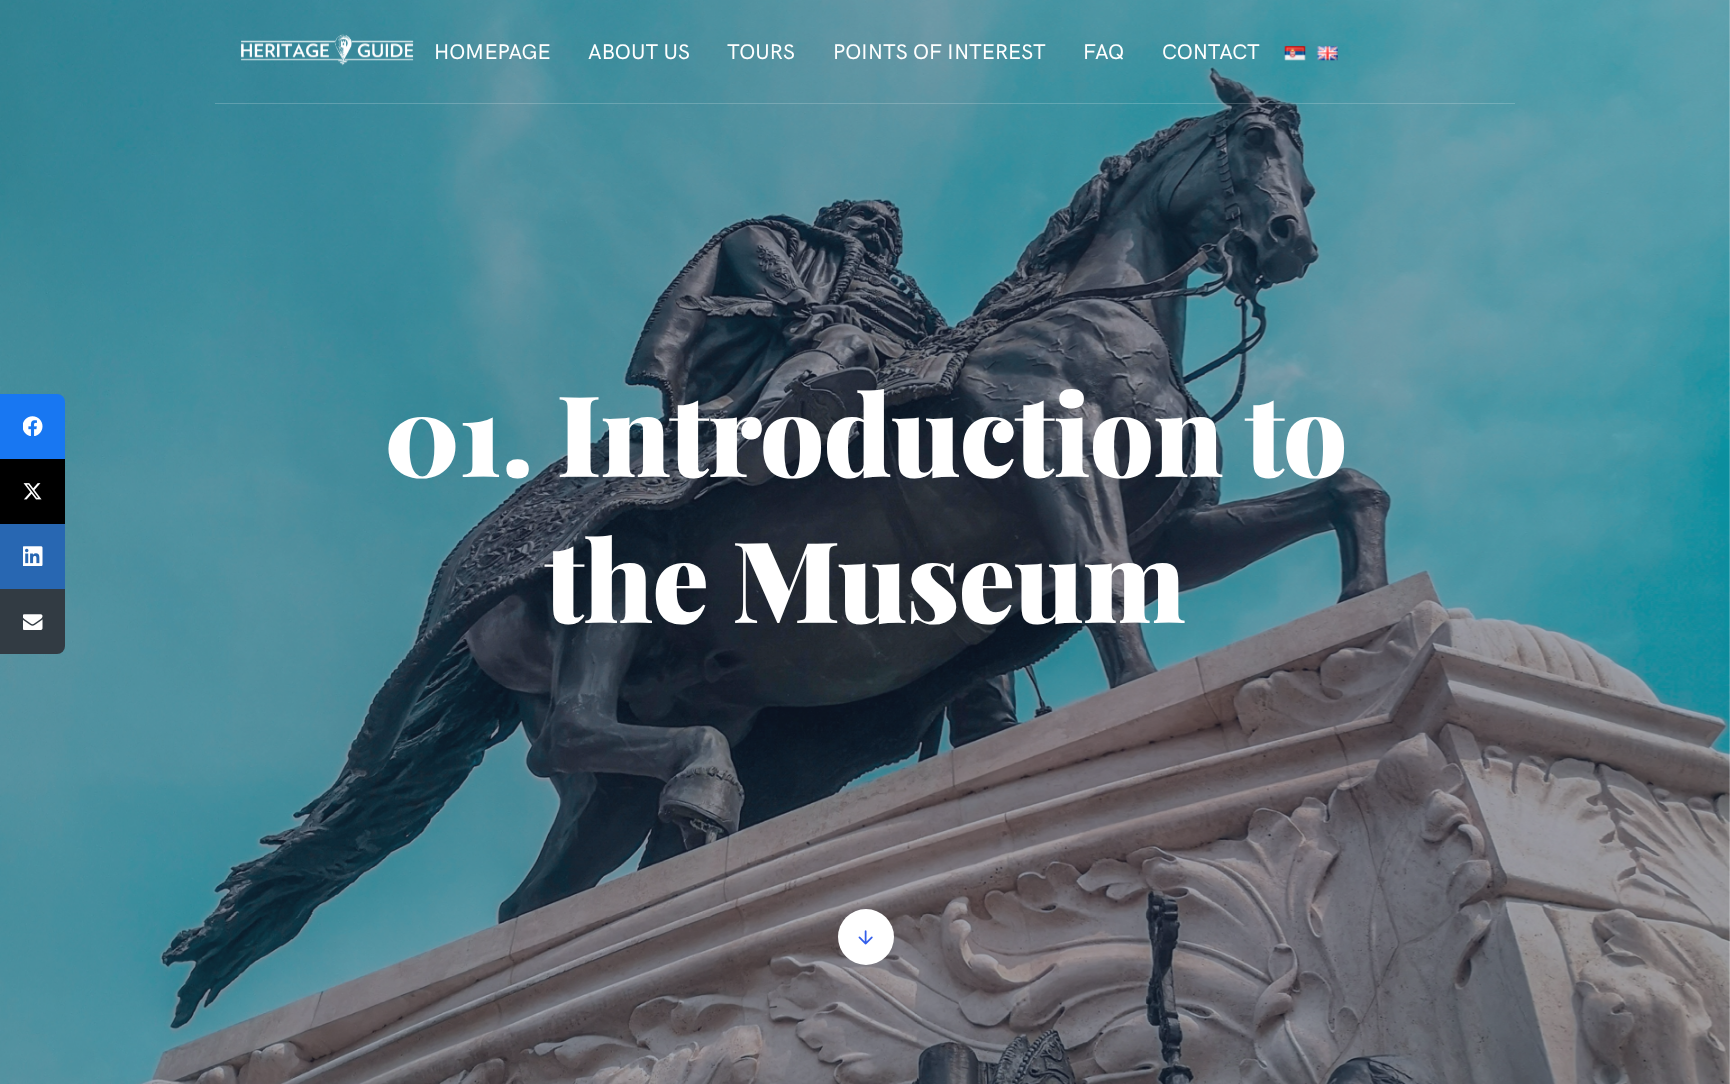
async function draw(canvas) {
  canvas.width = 1730
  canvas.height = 1084
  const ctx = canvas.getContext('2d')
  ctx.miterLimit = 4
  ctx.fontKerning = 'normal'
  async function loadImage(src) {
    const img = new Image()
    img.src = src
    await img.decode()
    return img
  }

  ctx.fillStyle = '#fff'
  ctx.fillRect(0, 0, 1730, 1084)
  ctx.drawImage(await loadImage('image7.png'), 0, 0, 1730, 1084)
  ctx.drawImage(await loadImage('image0.png'), 241, 34, 173, 32)
  ctx.font = '500 21.25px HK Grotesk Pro'
  ctx.fillText('HOMEPAGE', 434, 59)
  ctx.fillText('ABOUT US', 588, 59)
  ctx.fillText('TOURS', 727, 59)
  ctx.fillText('POINTS OF INTEREST', 833, 59)
  ctx.fillText('FAQ', 1083, 59)
  ctx.fillText('CONTACT', 1162, 59)
  ctx.drawImage(await loadImage('image1.png'), 1284, 46, 22, 15)
  ctx.drawImage(await loadImage('image2.png'), 1316, 46, 22, 15)
  ctx.fillStyle = '#ffffff33'
  ctx.fillRect(215, 103, 1300, 1)
  ctx.fillStyle = '#1877f2'
  ctx.beginPath()
  ctx.roundRect(0, 394, 65, 65, [0, 8, 0, 0])
  ctx.fill()
  ctx.drawImage(await loadImage('image3.png'), 23, 416, 20, 20)
  ctx.fillStyle = '#000'
  ctx.fillRect(0, 459, 65, 65)
  ctx.drawImage(await loadImage('image4.png'), 23, 483, 19, 17)
  ctx.fillStyle = '#2867b2'
  ctx.fillRect(0, 524, 65, 65)
  ctx.drawImage(await loadImage('image5.png'), 23, 546, 20, 20)
  ctx.fillStyle = '#323b43'
  ctx.beginPath()
  ctx.roundRect(0, 589, 65, 65, [0, 0, 8, 0])
  ctx.fill()
  ctx.drawImage(await loadImage('image6.png'), 23, 614, 20, 16)
  ctx.letterSpacing = '-1.1px'
  ctx.font = '900 112.5px Playfair Display'
  ctx.fillStyle = '#fff'
  ctx.fillText('01. Introduction to', 384, 477)
  ctx.fillText('the Museum', 545, 623)
  ctx.beginPath()
  ctx.arc(866, 937, 28, 0, 2 * Math.PI)
  ctx.fill()
  ctx.drawImage(await loadImage('image8.png'), 858, 930, 15, 15)
}

draw(document.querySelector('canvas'))
